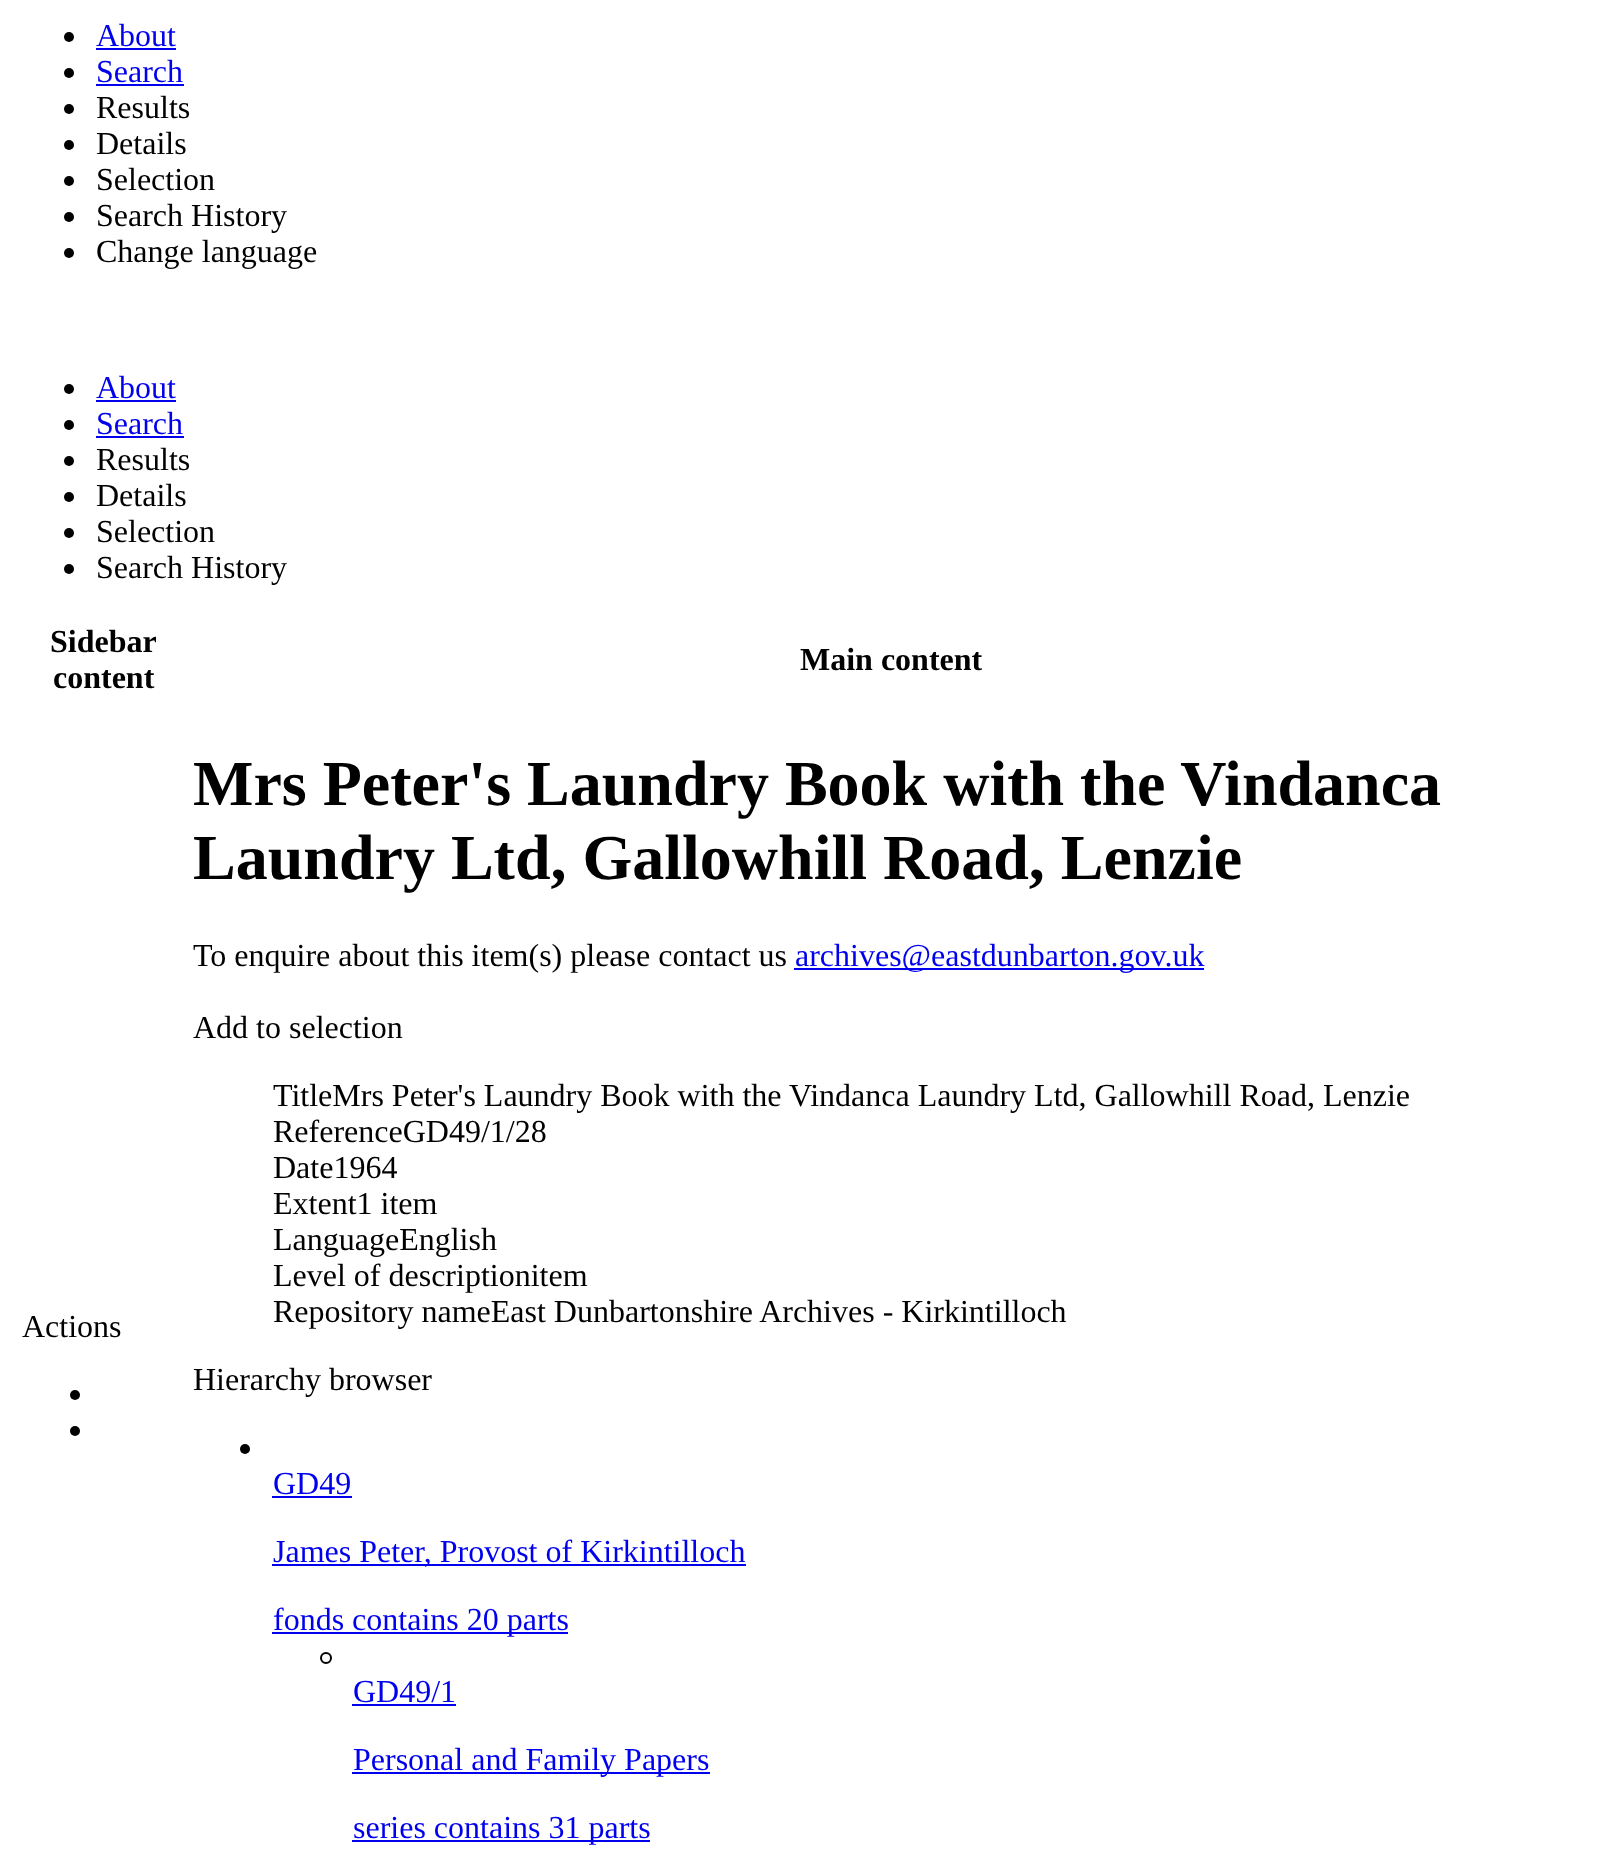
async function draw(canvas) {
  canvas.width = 1611
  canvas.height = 1850
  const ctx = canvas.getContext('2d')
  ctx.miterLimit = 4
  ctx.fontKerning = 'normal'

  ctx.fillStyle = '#fff'
  ctx.fillRect(0, 0, 1611, 1850)
  ctx.fillStyle = '#000'
  ctx.beginPath()
  ctx.arc(69, 37, 5, 0, 2 * Math.PI)
  ctx.fill()
  ctx.font = '32px Liberation Serif'
  ctx.fillStyle = '#00e'
  ctx.fillText('About', 96, 46)
  ctx.fillRect(96, 48, 80, 2)
  ctx.fillStyle = '#000'
  ctx.beginPath()
  ctx.arc(69, 73, 5, 0, 2 * Math.PI)
  ctx.fill()
  ctx.fillStyle = '#00e'
  ctx.fillText('Search', 96, 82)
  ctx.fillRect(96, 84, 88, 2)
  ctx.fillStyle = '#000'
  ctx.beginPath()
  ctx.arc(69, 109, 5, 0, 2 * Math.PI)
  ctx.fill()
  ctx.fillText('Results', 96, 118)
  ctx.beginPath()
  ctx.arc(69, 145, 5, 0, 2 * Math.PI)
  ctx.fill()
  ctx.fillText('Details', 96, 154)
  ctx.beginPath()
  ctx.arc(69, 181, 5, 0, 2 * Math.PI)
  ctx.fill()
  ctx.fillText('Selection', 96, 190)
  ctx.beginPath()
  ctx.arc(69, 217, 5, 0, 2 * Math.PI)
  ctx.fill()
  ctx.fillText('Search History', 96, 226)
  ctx.beginPath()
  ctx.arc(69, 253, 5, 0, 2 * Math.PI)
  ctx.fill()
  ctx.fillText('Change language', 96, 262)
  ctx.beginPath()
  ctx.arc(69, 389, 5, 0, 2 * Math.PI)
  ctx.fill()
  ctx.fillStyle = '#00e'
  ctx.fillText('About', 96, 398)
  ctx.fillRect(96, 400, 80, 2)
  ctx.fillStyle = '#000'
  ctx.beginPath()
  ctx.arc(69, 425, 5, 0, 2 * Math.PI)
  ctx.fill()
  ctx.fillStyle = '#00e'
  ctx.fillText('Search', 96, 434)
  ctx.fillRect(96, 436, 88, 2)
  ctx.fillStyle = '#000'
  ctx.beginPath()
  ctx.arc(69, 461, 5, 0, 2 * Math.PI)
  ctx.fill()
  ctx.fillText('Results', 96, 470)
  ctx.beginPath()
  ctx.arc(69, 497, 5, 0, 2 * Math.PI)
  ctx.fill()
  ctx.fillText('Details', 96, 506)
  ctx.beginPath()
  ctx.arc(69, 533, 5, 0, 2 * Math.PI)
  ctx.fill()
  ctx.fillText('Selection', 96, 542)
  ctx.beginPath()
  ctx.arc(69, 569, 5, 0, 2 * Math.PI)
  ctx.fill()
  ctx.fillText('Search History', 96, 578)
  ctx.font = 'bold 32px Liberation Serif'
  ctx.fillText('Sidebar', 50, 652)
  ctx.fillText('content', 53, 688)
  ctx.fillText('Main content', 800, 670)
  ctx.font = '32px Liberation Serif'
  ctx.fillText('Actions', 22, 1337)
  ctx.beginPath()
  ctx.arc(75, 1395, 5, 0, 2 * Math.PI)
  ctx.fill()
  ctx.beginPath()
  ctx.arc(75, 1431, 5, 0, 2 * Math.PI)
  ctx.fill()
  ctx.font = 'bold 64px Liberation Serif'
  ctx.fillText('Mrs Peter\'s Laundry Book with the Vindanca', 193, 805)
  ctx.fillText('Laundry Ltd, Gallowhill Road, Lenzie', 193, 879)
  ctx.font = '32px Liberation Serif'
  ctx.fillText('To enquire about this item(s) please contact us', 193, 966)
  ctx.fillStyle = '#00e'
  ctx.fillRect(794, 968, 410, 2)
  ctx.fillText('archives@eastdunbarton.gov.uk', 795, 966)
  ctx.fillStyle = '#000'
  ctx.fillText('Add to selection', 193, 1038)
  ctx.fillText('TitleMrs Peter\'s Laundry Book with the Vindanca Laundry Ltd, Gallowhill Road, Lenzie', 273, 1106)
  ctx.fillText('ReferenceGD49/1/28', 273, 1142)
  ctx.fillText('Date1964', 273, 1178)
  ctx.fillText('Extent1 item', 273, 1214)
  ctx.fillText('LanguageEnglish', 273, 1250)
  ctx.fillText('Level of descriptionitem', 273, 1286)
  ctx.fillText('Repository nameEast Dunbartonshire Archives - Kirkintilloch', 273, 1322)
  ctx.fillText('Hierarchy browser', 193, 1390)
  ctx.beginPath()
  ctx.arc(245, 1449, 5, 0, 2 * Math.PI)
  ctx.fill()
  ctx.fillStyle = '#00e'
  ctx.fillText('GD49', 273, 1494)
  ctx.fillRect(272, 1496, 80, 2)
  ctx.fillRect(272, 1564, 474, 2)
  ctx.fillText('James Peter, Provost of Kirkintilloch', 273, 1562)
  ctx.fillRect(272, 1632, 296, 2)
  ctx.fillText('fonds contains 20 parts', 273, 1630)
  ctx.beginPath()
  ctx.arc(326, 1658, 5, 0, 2 * Math.PI)
  ctx.strokeStyle = '#000'
  ctx.lineWidth = 2
  ctx.stroke()
  ctx.fillText('GD49/1', 353, 1702)
  ctx.fillRect(352, 1704, 104, 2)
  ctx.fillRect(352, 1772, 358, 2)
  ctx.fillText('Personal and Family Papers', 353, 1770)
  ctx.fillRect(352, 1840, 298, 2)
  ctx.fillText('series contains 31 parts', 353, 1838)
}

draw(document.querySelector('canvas'))
